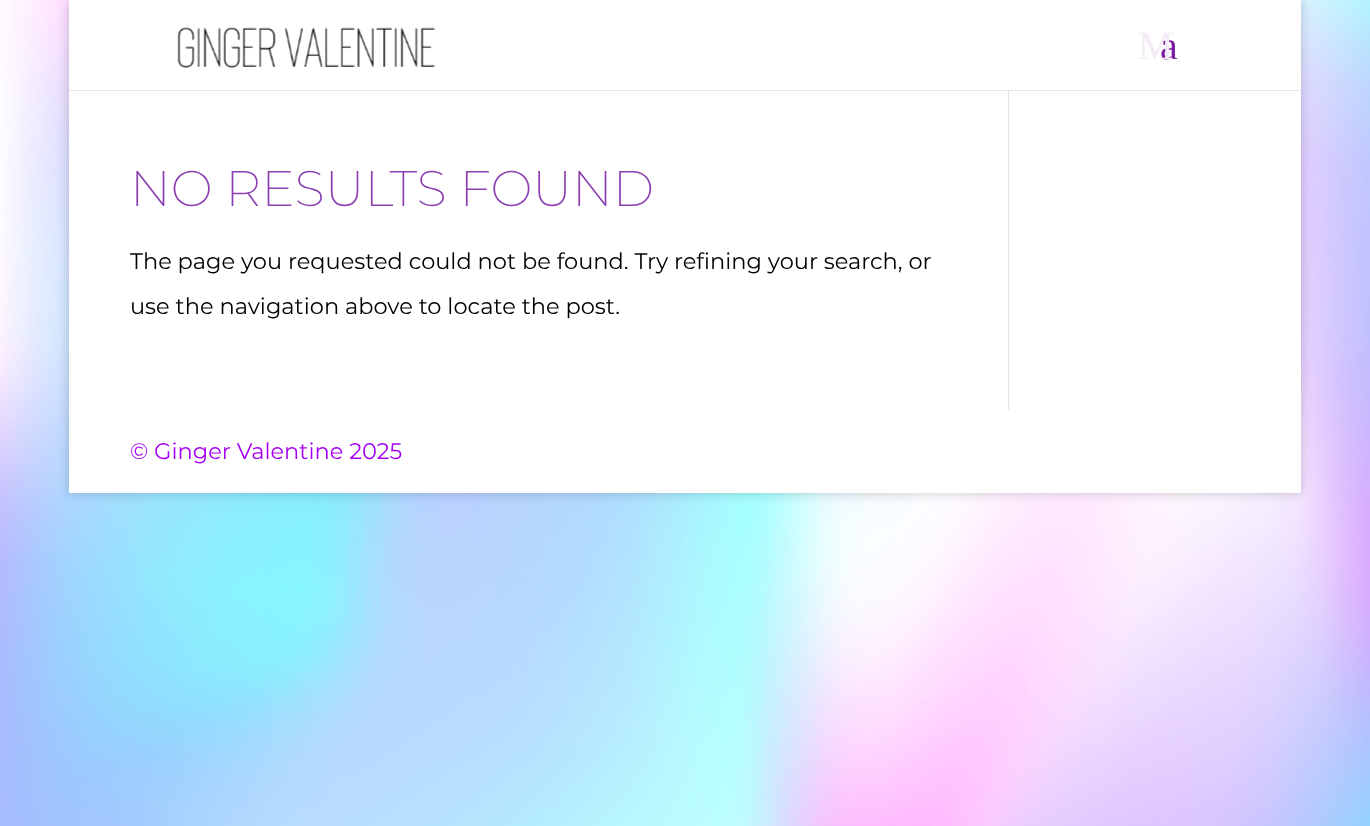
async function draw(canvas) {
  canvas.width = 1370
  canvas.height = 826
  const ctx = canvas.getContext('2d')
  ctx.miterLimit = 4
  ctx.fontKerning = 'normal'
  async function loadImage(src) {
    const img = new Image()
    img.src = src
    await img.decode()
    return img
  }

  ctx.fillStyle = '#fff'
  ctx.fillRect(0, 0, 1370, 826)
  ctx.drawImage(await loadImage('image0.png'), 0, 0, 1370, 826)
  ctx.fillStyle = '#00000033'
  ctx.filter = 'blur(6px)'
  ctx.beginPath()
  ctx.rect(69, 0, 1232, 493)
  ctx.fill()
  ctx.filter = 'none'
  ctx.fillStyle = '#fff'
  ctx.fillRect(69, 0, 1232, 493)
  ctx.fillStyle = '#e2e2e2'
  ctx.fillRect(1008, 90, 1, 320)
  ctx.fillStyle = '#0000001a'
  ctx.fillRect(69, 90, 1232, 1)
  ctx.drawImage(await loadImage('image1.png'), 177, 27, 258, 41)
  ctx.font = '40px Liberation Serif'
  ctx.fillStyle = '#7b1ca0'
  ctx.fillText('a', 1160, 59)
  ctx.fillStyle = '#f3ebf6'
  ctx.fillText('M', 1138, 59)
  ctx.font = '100 50px Montserrat'
  ctx.fillStyle = '#8c40b2'
  ctx.fillText('NO RESULTS FOUND', 130, 206)
  ctx.font = '100 22.5px "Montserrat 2"'
  ctx.fillStyle = '#000'
  ctx.fillText('The page you requested could not be found. Try refining your search, or', 130, 269)
  ctx.fillText('use the navigation above to locate the post.', 130, 314)
  ctx.fillStyle = '#a500f2'
  ctx.fillText('© Ginger Valentine 2025', 130, 459)
}

draw(document.querySelector('canvas'))
